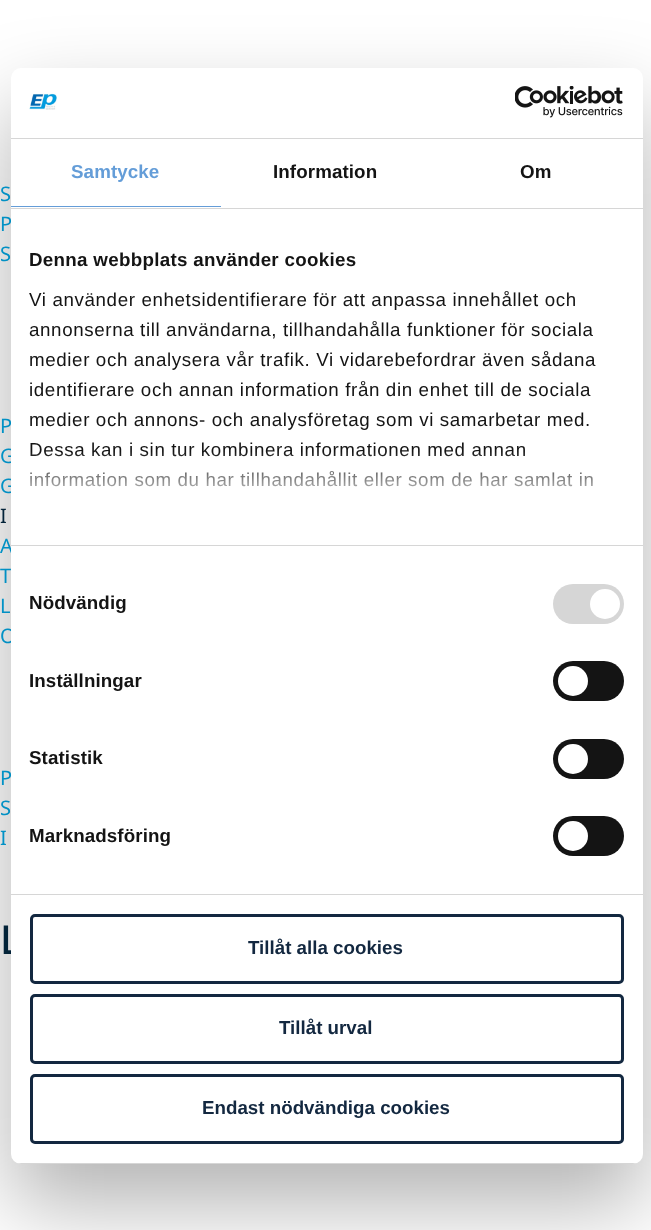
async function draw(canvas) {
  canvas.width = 651
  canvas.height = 1230
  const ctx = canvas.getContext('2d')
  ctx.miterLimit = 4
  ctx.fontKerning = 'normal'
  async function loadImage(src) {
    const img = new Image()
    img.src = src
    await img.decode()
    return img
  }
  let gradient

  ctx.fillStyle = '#fff'
  ctx.fillRect(0, 0, 651, 1230)
  ctx.font = '20px Noto Sans'
  ctx.fillStyle = '#02a7e3'
  ctx.fillText('S', 0, 201)
  ctx.fillText('P', 0, 231)
  ctx.fillText('S', 0, 261)
  ctx.fillText('P', 0, 433)
  ctx.fillText('G', 0, 463)
  ctx.fillText('G', 0, 493)
  ctx.fillStyle = '#042942'
  ctx.fillText('I', 0, 523)
  ctx.fillStyle = '#02a7e3'
  ctx.fillText('A', 0, 553)
  ctx.fillText('T', 0, 583)
  ctx.fillText('L', 0, 613)
  ctx.fillText('O', 0, 643)
  ctx.fillText('P', 0, 785)
  ctx.fillText('S', 0, 815)
  ctx.fillText('I', 0, 845)
  ctx.font = '500 40px Noto Sans'
  ctx.fillStyle = '#042942'
  ctx.fillText('L', 0, 954)
  ctx.fillStyle = '#0000004d'
  ctx.filter = 'blur(42.5px)'
  ctx.beginPath()
  ctx.roundRect(11, 108, 632, 1096, 10)
  ctx.fill()
  ctx.filter = 'none'
  ctx.fillStyle = '#fff'
  ctx.beginPath()
  ctx.roundRect(11, 68, 632, 1096, 10)
  ctx.fill()
  ctx.fillStyle = '#d6d6d6'
  ctx.fillRect(11, 138, 632, 1)
  ctx.drawImage(await loadImage('image0.png'), 29, 93, 28, 17)
  ctx.drawImage(await loadImage('image1.png'), 515, 86, 108, 32)
  ctx.fillRect(11, 208, 632, 1)
  ctx.fillStyle = '#649dd8'
  ctx.fillRect(11, 206, 210, 1)
  ctx.letterSpacing = '0.1px'
  ctx.font = 'bold 18.75px Liberation Sans'
  ctx.fillText('Samtycke', 71, 178)
  ctx.fillStyle = '#141414'
  ctx.fillText('Information', 273, 178)
  ctx.fillText('Om', 520, 178)
  ctx.fillStyle = '#d6d6d6'
  ctx.fillRect(11, 545, 632, 1)
  ctx.letterSpacing = '0.3px'
  ctx.fillStyle = '#141414'
  ctx.fillText('Denna webbplats använder cookies', 29, 266)
  ctx.letterSpacing = '0.62px'
  ctx.font = '18.75px Liberation Sans'
  ctx.fillText('Vi använder enhetsidentifierare för att anpassa innehållet och', 29, 306)
  ctx.fillText('annonserna till användarna, tillhandahålla funktioner för sociala', 29, 336)
  ctx.fillText('medier och analysera vår trafik. Vi vidarebefordrar även sådana', 29, 366)
  ctx.fillText('identifierare och annan information från din enhet till de sociala', 29, 396)
  ctx.fillText('medier och annons- och analysföretag som vi samarbetar med.', 29, 426)
  ctx.fillText('Dessa kan i sin tur kombinera informationen med annan', 29, 456)
  ctx.fillText('information som du har tillhandahållit eller som de har samlat in', 29, 486)
  gradient = ctx.createLinearGradient(318, 544, 318, 451)
  gradient.addColorStop(0, '#fff')
  gradient.addColorStop(0.5, '#ffffffcc')
  gradient.addColorStop(1, '#ffffff00')
  ctx.fillStyle = gradient
  ctx.fillRect(30, 452, 563, 35)
  ctx.fillStyle = '#d6d6d6'
  ctx.fillRect(11, 894, 632, 1)
  ctx.letterSpacing = '0.1px'
  ctx.font = 'bold 18.75px Liberation Sans'
  ctx.fillStyle = '#141414'
  ctx.fillText('Nödvändig', 29, 609)
  ctx.fillStyle = '#d6d6d6'
  ctx.beginPath()
  ctx.roundRect(553, 584, 71, 40, 20)
  ctx.fill()
  ctx.fillStyle = '#fff'
  ctx.beginPath()
  ctx.arc(605, 604, 15, 0, 2 * Math.PI)
  ctx.fill()
  ctx.fillStyle = '#141414'
  ctx.fillText('Inställningar', 29, 687)
  ctx.beginPath()
  ctx.roundRect(553, 661, 71, 40, 20)
  ctx.fill()
  ctx.fillStyle = '#fff'
  ctx.beginPath()
  ctx.arc(573, 681, 15, 0, 2 * Math.PI)
  ctx.fill()
  ctx.fillStyle = '#141414'
  ctx.fillText('Statistik', 29, 764)
  ctx.beginPath()
  ctx.roundRect(553, 739, 71, 40, 20)
  ctx.fill()
  ctx.fillStyle = '#fff'
  ctx.beginPath()
  ctx.arc(573, 759, 15, 0, 2 * Math.PI)
  ctx.fill()
  ctx.fillStyle = '#141414'
  ctx.fillText('Marknadsföring', 29, 842)
  ctx.beginPath()
  ctx.roundRect(553, 816, 71, 40, 20)
  ctx.fill()
  ctx.fillStyle = '#fff'
  ctx.beginPath()
  ctx.arc(573, 836, 15, 0, 2 * Math.PI)
  ctx.fill()
  ctx.save()
  ctx.beginPath()
  ctx.roundRect(11, 68, 632, 1096, 10)
  ctx.clip()
  ctx.fillStyle = '#d6d6d6'
  ctx.fillRect(11, 1163, 632, 1)
  ctx.restore()
  ctx.beginPath()
  ctx.roundRect(31.5, 915.5, 591, 67, 3.5)
  ctx.strokeStyle = '#132840'
  ctx.lineWidth = 3
  ctx.stroke()
  ctx.letterSpacing = '0px'
  ctx.fillStyle = '#132840'
  ctx.fillText('Tillåt alla cookies', 248, 954)
  ctx.beginPath()
  ctx.roundRect(31.5, 995.5, 591, 67, 3.5)
  ctx.stroke()
  ctx.fillText('Tillåt urval', 279, 1034)
  ctx.beginPath()
  ctx.roundRect(31.5, 1075.5, 591, 67, 3.5)
  ctx.stroke()
  ctx.fillText('Endast nödvändiga cookies', 202, 1114)
}

draw(document.querySelector('canvas'))
